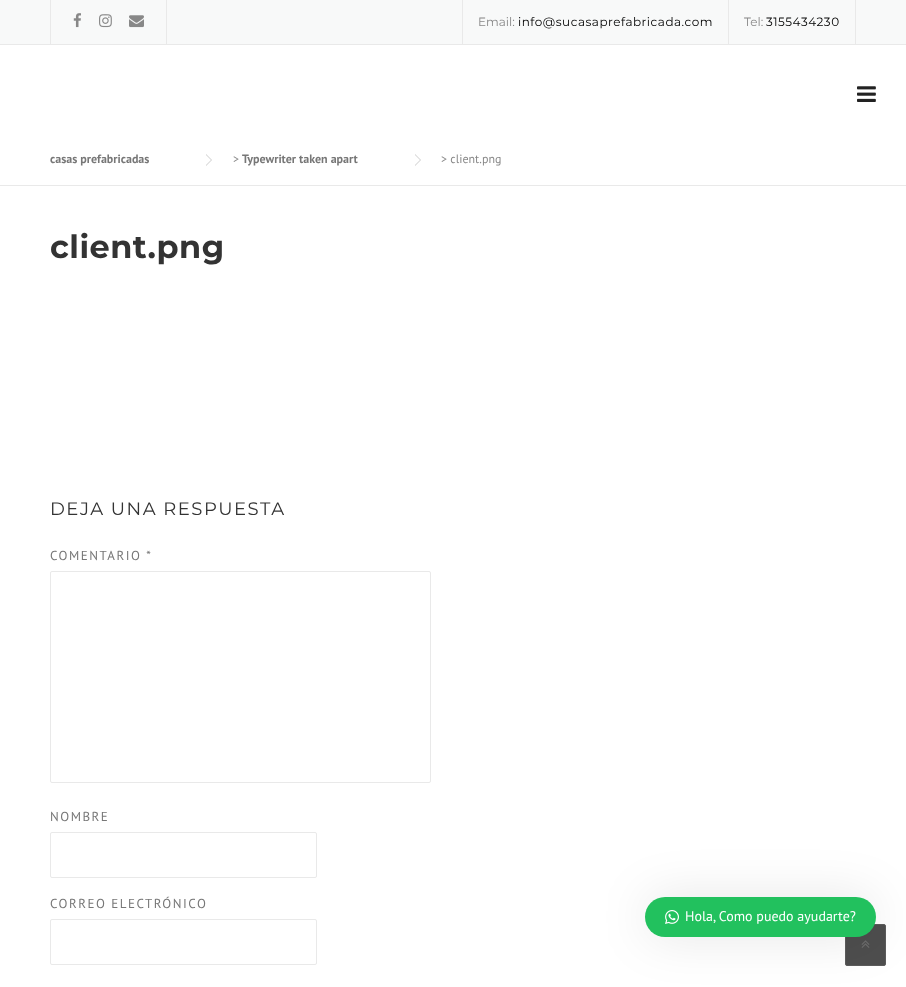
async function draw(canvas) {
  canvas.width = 906
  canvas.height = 987
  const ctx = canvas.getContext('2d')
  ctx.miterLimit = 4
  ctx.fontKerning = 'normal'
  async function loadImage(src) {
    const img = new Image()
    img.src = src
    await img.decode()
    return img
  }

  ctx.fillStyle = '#fff'
  ctx.fillRect(0, 0, 906, 987)
  ctx.fillStyle = '#f8f9f9'
  ctx.fillRect(0, 0, 906, 44)
  ctx.fillStyle = '#e9e9e9'
  ctx.fillRect(0, 44, 906, 1)
  ctx.fillRect(166, 0, 1, 44)
  ctx.fillRect(50, 0, 1, 44)
  ctx.drawImage(await loadImage('image0.png'), 73, 13, 8, 15)
  ctx.drawImage(await loadImage('image1.png'), 99, 14, 13, 14)
  ctx.drawImage(await loadImage('image2.png'), 129, 15, 15, 13)
  ctx.fillRect(462, 0, 1, 44)
  ctx.font = '12px Montserrat'
  ctx.fillStyle = '#888'
  ctx.fillText('Email:', 478, 26)
  ctx.letterSpacing = '0.5px'
  ctx.fillStyle = '#000'
  ctx.fillText('info@sucasaprefabricada.com', 518, 26)
  ctx.fillStyle = '#e9e9e9'
  ctx.fillRect(855, 0, 1, 44)
  ctx.fillRect(728, 0, 1, 44)
  ctx.letterSpacing = '0px'
  ctx.fillStyle = '#888'
  ctx.fillText('Tel:', 744, 26)
  ctx.letterSpacing = '0.5px'
  ctx.fillStyle = '#000'
  ctx.fillText('3155434230', 766, 26)
  ctx.drawImage(await loadImage('image3.png'), 857, 86, 19, 16)
  ctx.fillStyle = '#e9e9e9'
  ctx.fillRect(0, 185, 906, 1)
  ctx.letterSpacing = '0px'
  ctx.font = 'bold 12px PT Sans'
  ctx.fillStyle = '#777'
  ctx.fillText('casas prefabricadas', 50, 163)
  ctx.fillStyle = '#ccc'
  ctx.beginPath()
  ctx.moveTo(206, 166)
  ctx.lineTo(206, 154)
  ctx.lineTo(212, 160)
  ctx.closePath()
  ctx.fill()
  ctx.fillStyle = '#fff'
  ctx.beginPath()
  ctx.moveTo(206, 165)
  ctx.lineTo(206, 155)
  ctx.lineTo(211, 160)
  ctx.closePath()
  ctx.fill()
  ctx.font = '12px PT Sans'
  ctx.fillStyle = '#888'
  ctx.fillText('>', 233, 163)
  ctx.font = 'bold 12px PT Sans'
  ctx.fillStyle = '#777'
  ctx.fillText('Typewriter taken apart', 242, 163)
  ctx.fillStyle = '#ccc'
  ctx.beginPath()
  ctx.moveTo(415, 166)
  ctx.lineTo(415, 154)
  ctx.lineTo(421, 160)
  ctx.closePath()
  ctx.fill()
  ctx.fillStyle = '#fff'
  ctx.beginPath()
  ctx.moveTo(415, 165)
  ctx.lineTo(415, 155)
  ctx.lineTo(420, 160)
  ctx.closePath()
  ctx.fill()
  ctx.font = '12px PT Sans'
  ctx.fillStyle = '#888'
  ctx.fillText('> client.png', 441, 163)
  ctx.letterSpacing = '0.5px'
  ctx.font = 'bold 32px Montserrat'
  ctx.fillStyle = '#333'
  ctx.fillText('client.png', 50, 258)
  ctx.letterSpacing = '1.5px'
  ctx.font = '18px Montserrat'
  ctx.fillText('DEJA UNA RESPUESTA', 50, 515)
  ctx.font = '13px PT Sans'
  ctx.fillStyle = '#777'
  ctx.fillText('COMENTARIO *', 50, 560)
  ctx.beginPath()
  ctx.roundRect(50.5, 571.5, 380, 211, 1.5)
  ctx.strokeStyle = '#e9e9e9'
  ctx.stroke()
  ctx.fillText('NOMBRE', 50, 821)
  ctx.beginPath()
  ctx.roundRect(50.5, 832.5, 266, 45, 1.5)
  ctx.stroke()
  ctx.fillText('CORREO ELECTRÓNICO', 50, 908)
  ctx.beginPath()
  ctx.roundRect(50.5, 919.5, 266, 45, 1.5)
  ctx.stroke()
  ctx.fillStyle = '#4e4e4e'
  ctx.beginPath()
  ctx.roundRect(845.5, 924.5, 40, 41, 1.5)
  ctx.fill()
  ctx.strokeStyle = '#5c5c5c'
  ctx.stroke()
  ctx.drawImage(await loadImage('image5.png'), 861, 940, 9, 8)
  ctx.fillStyle = '#0000001a'
  ctx.filter = 'blur(25px)'
  ctx.beginPath()
  ctx.roundRect(645, 897, 231, 40, 20)
  ctx.fill()
  ctx.filter = 'none'
  ctx.fillStyle = '#22c15e'
  ctx.beginPath()
  ctx.roundRect(645, 897, 231, 40, 20)
  ctx.fill()
  ctx.drawImage(await loadImage('image4.png'), 665, 910, 14, 14)
  ctx.letterSpacing = '0px'
  ctx.font = '14px PT Sans'
  ctx.fillStyle = '#fff'
  ctx.fillText('Hola, Como puedo ayudarte?', 685, 921)
}

draw(document.querySelector('canvas'))
